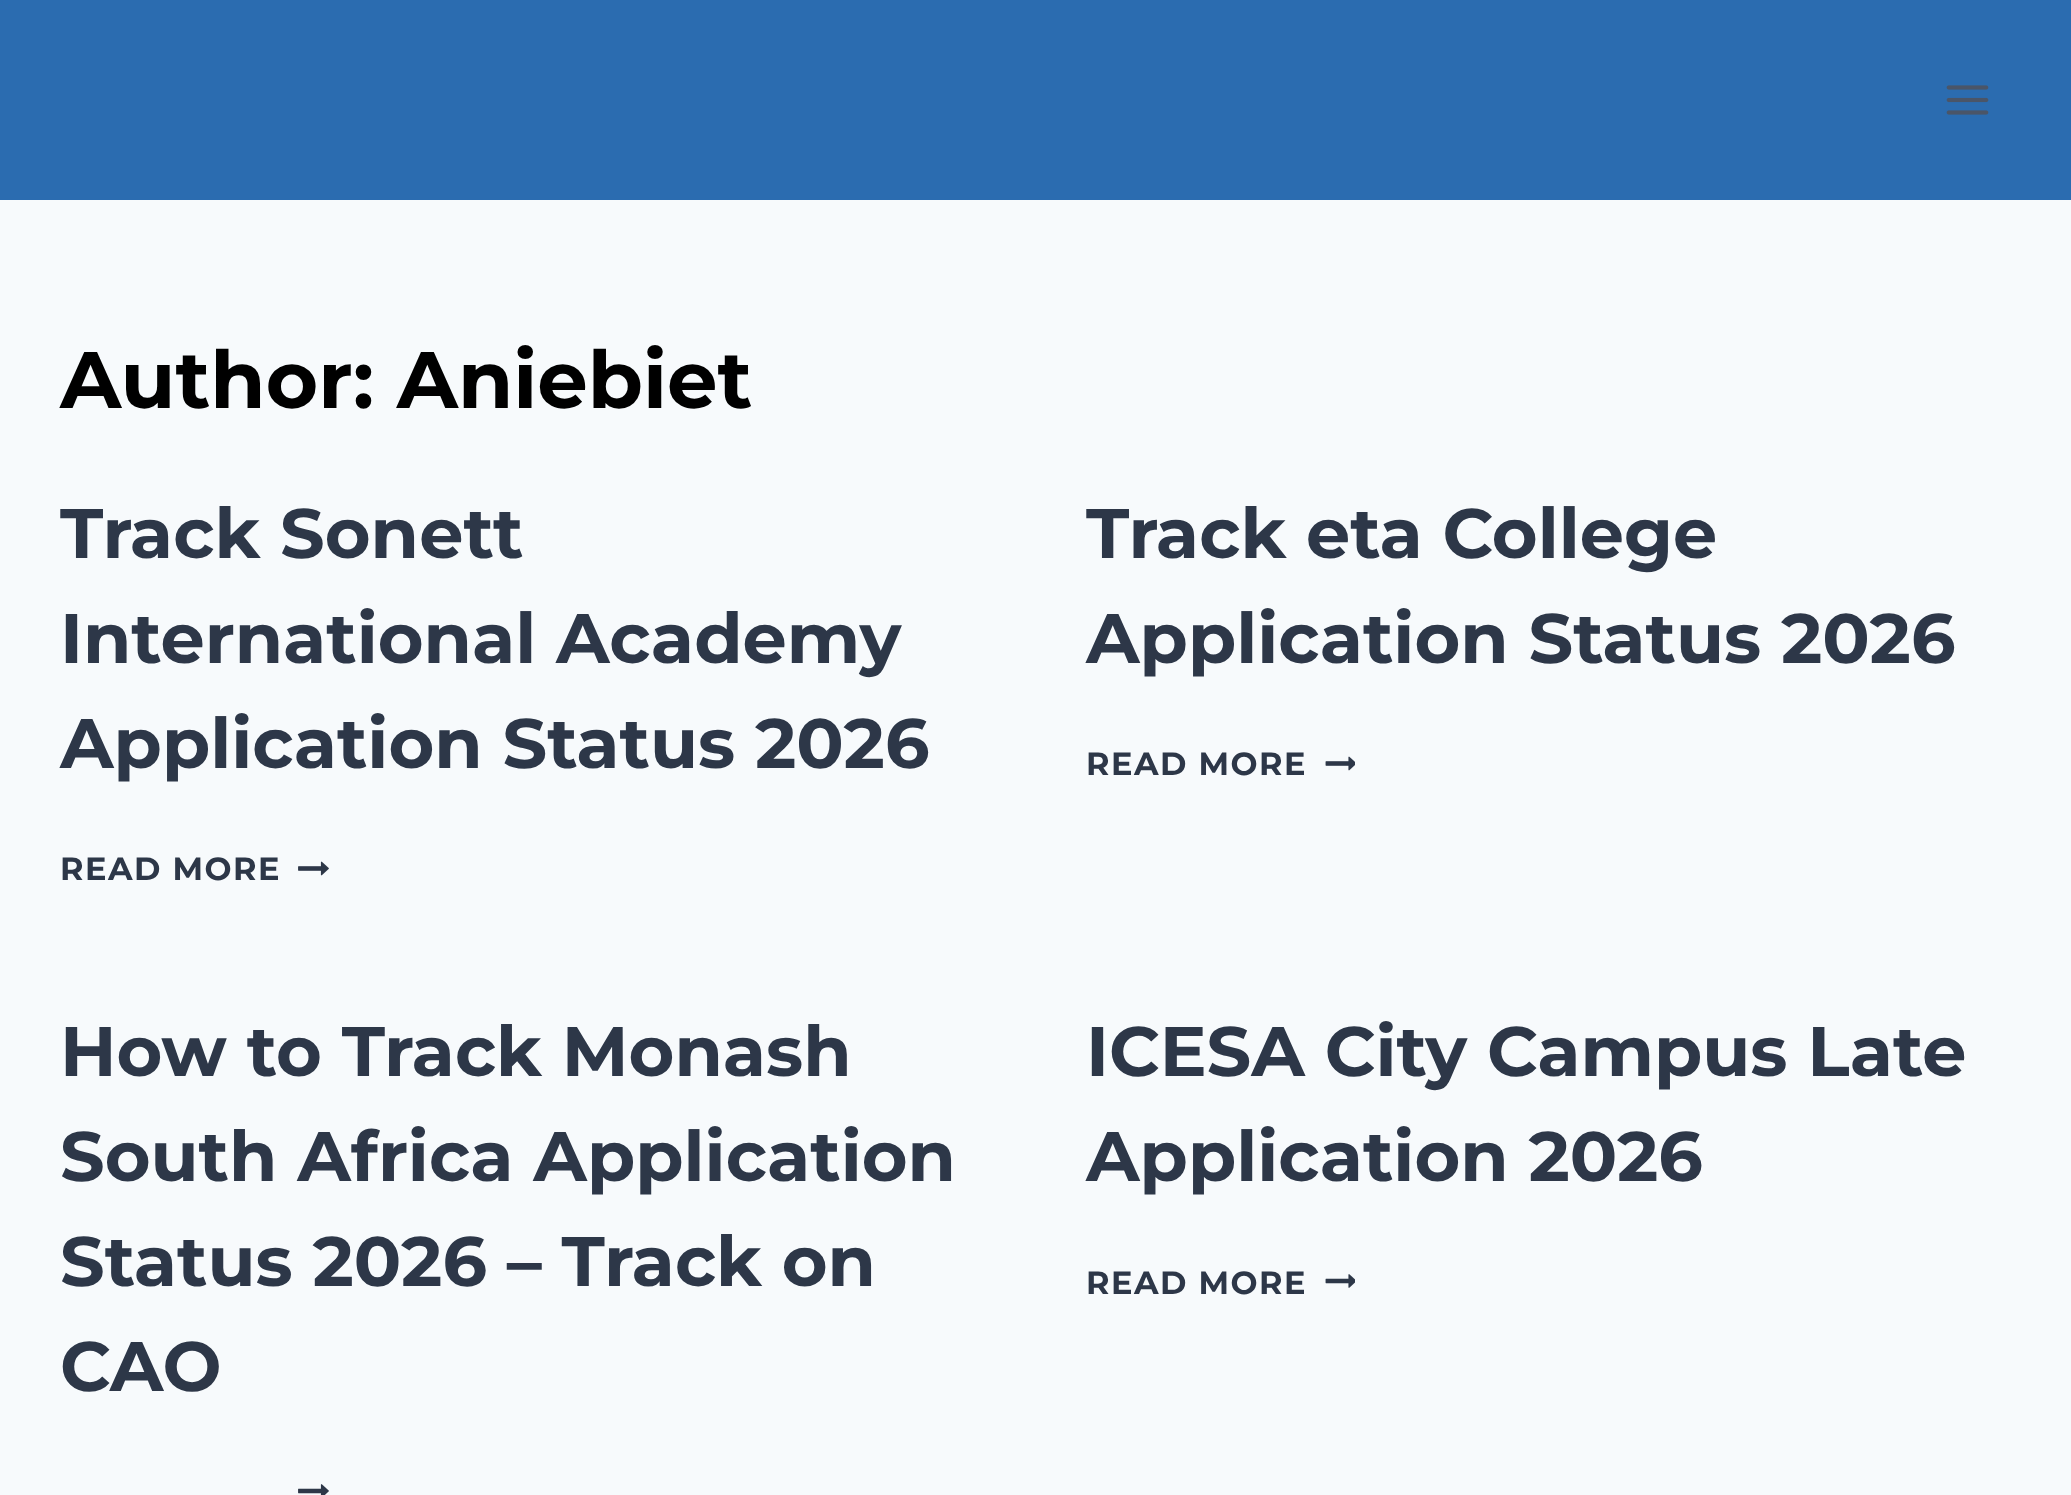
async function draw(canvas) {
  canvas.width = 2071
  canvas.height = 1495
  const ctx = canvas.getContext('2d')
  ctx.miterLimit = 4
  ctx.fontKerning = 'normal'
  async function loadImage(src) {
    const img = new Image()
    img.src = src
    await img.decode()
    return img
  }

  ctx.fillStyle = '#f7fafc'
  ctx.fillRect(0, 0, 2071, 1495)
  ctx.fillStyle = '#2b6cb0'
  ctx.fillRect(0, 0, 2071, 200)
  ctx.drawImage(await loadImage('image0.png'), 1946, 85, 43, 30)
  ctx.font = 'bold 80px Montserrat'
  ctx.fillStyle = '#000'
  ctx.fillText('Author: Aniebiet', 60, 408)
  ctx.font = 'bold 70px Montserrat'
  ctx.fillStyle = '#2d3748'
  ctx.fillText('Track Sonett', 60, 558)
  ctx.fillText('International Academy', 60, 663)
  ctx.fillText('Application Status 2026', 60, 768)
  ctx.letterSpacing = '1.5px'
  ctx.font = 'bold 32px Montserrat'
  ctx.fillText('READ MORE', 60, 880)
  ctx.drawImage(await loadImage('image1.png'), 298, 861, 31, 15)
  ctx.letterSpacing = '0px'
  ctx.font = 'bold 70px Montserrat'
  ctx.fillText('Track eta College', 1086, 558)
  ctx.fillText('Application Status 2026', 1086, 663)
  ctx.letterSpacing = '1.5px'
  ctx.font = 'bold 32px Montserrat'
  ctx.fillText('READ MORE', 1086, 775)
  ctx.drawImage(await loadImage('image2.png'), 1325, 756, 30, 15)
  ctx.letterSpacing = '0px'
  ctx.font = 'bold 70px Montserrat'
  ctx.fillText('How to Track Monash', 60, 1076)
  ctx.fillText('South Africa Application', 60, 1181)
  ctx.fillText('Status 2026 – Track on', 60, 1286)
  ctx.fillText('CAO', 60, 1391)
  ctx.drawImage(await loadImage('image3.png'), 298, 1484, 31, 11)
  ctx.fillText('ICESA City Campus Late', 1086, 1076)
  ctx.fillText('Application 2026', 1086, 1181)
  ctx.letterSpacing = '1.5px'
  ctx.font = 'bold 32px Montserrat'
  ctx.fillText('READ MORE', 1086, 1294)
  ctx.drawImage(await loadImage('image4.png'), 1325, 1274, 30, 14)
}

draw(document.querySelector('canvas'))
